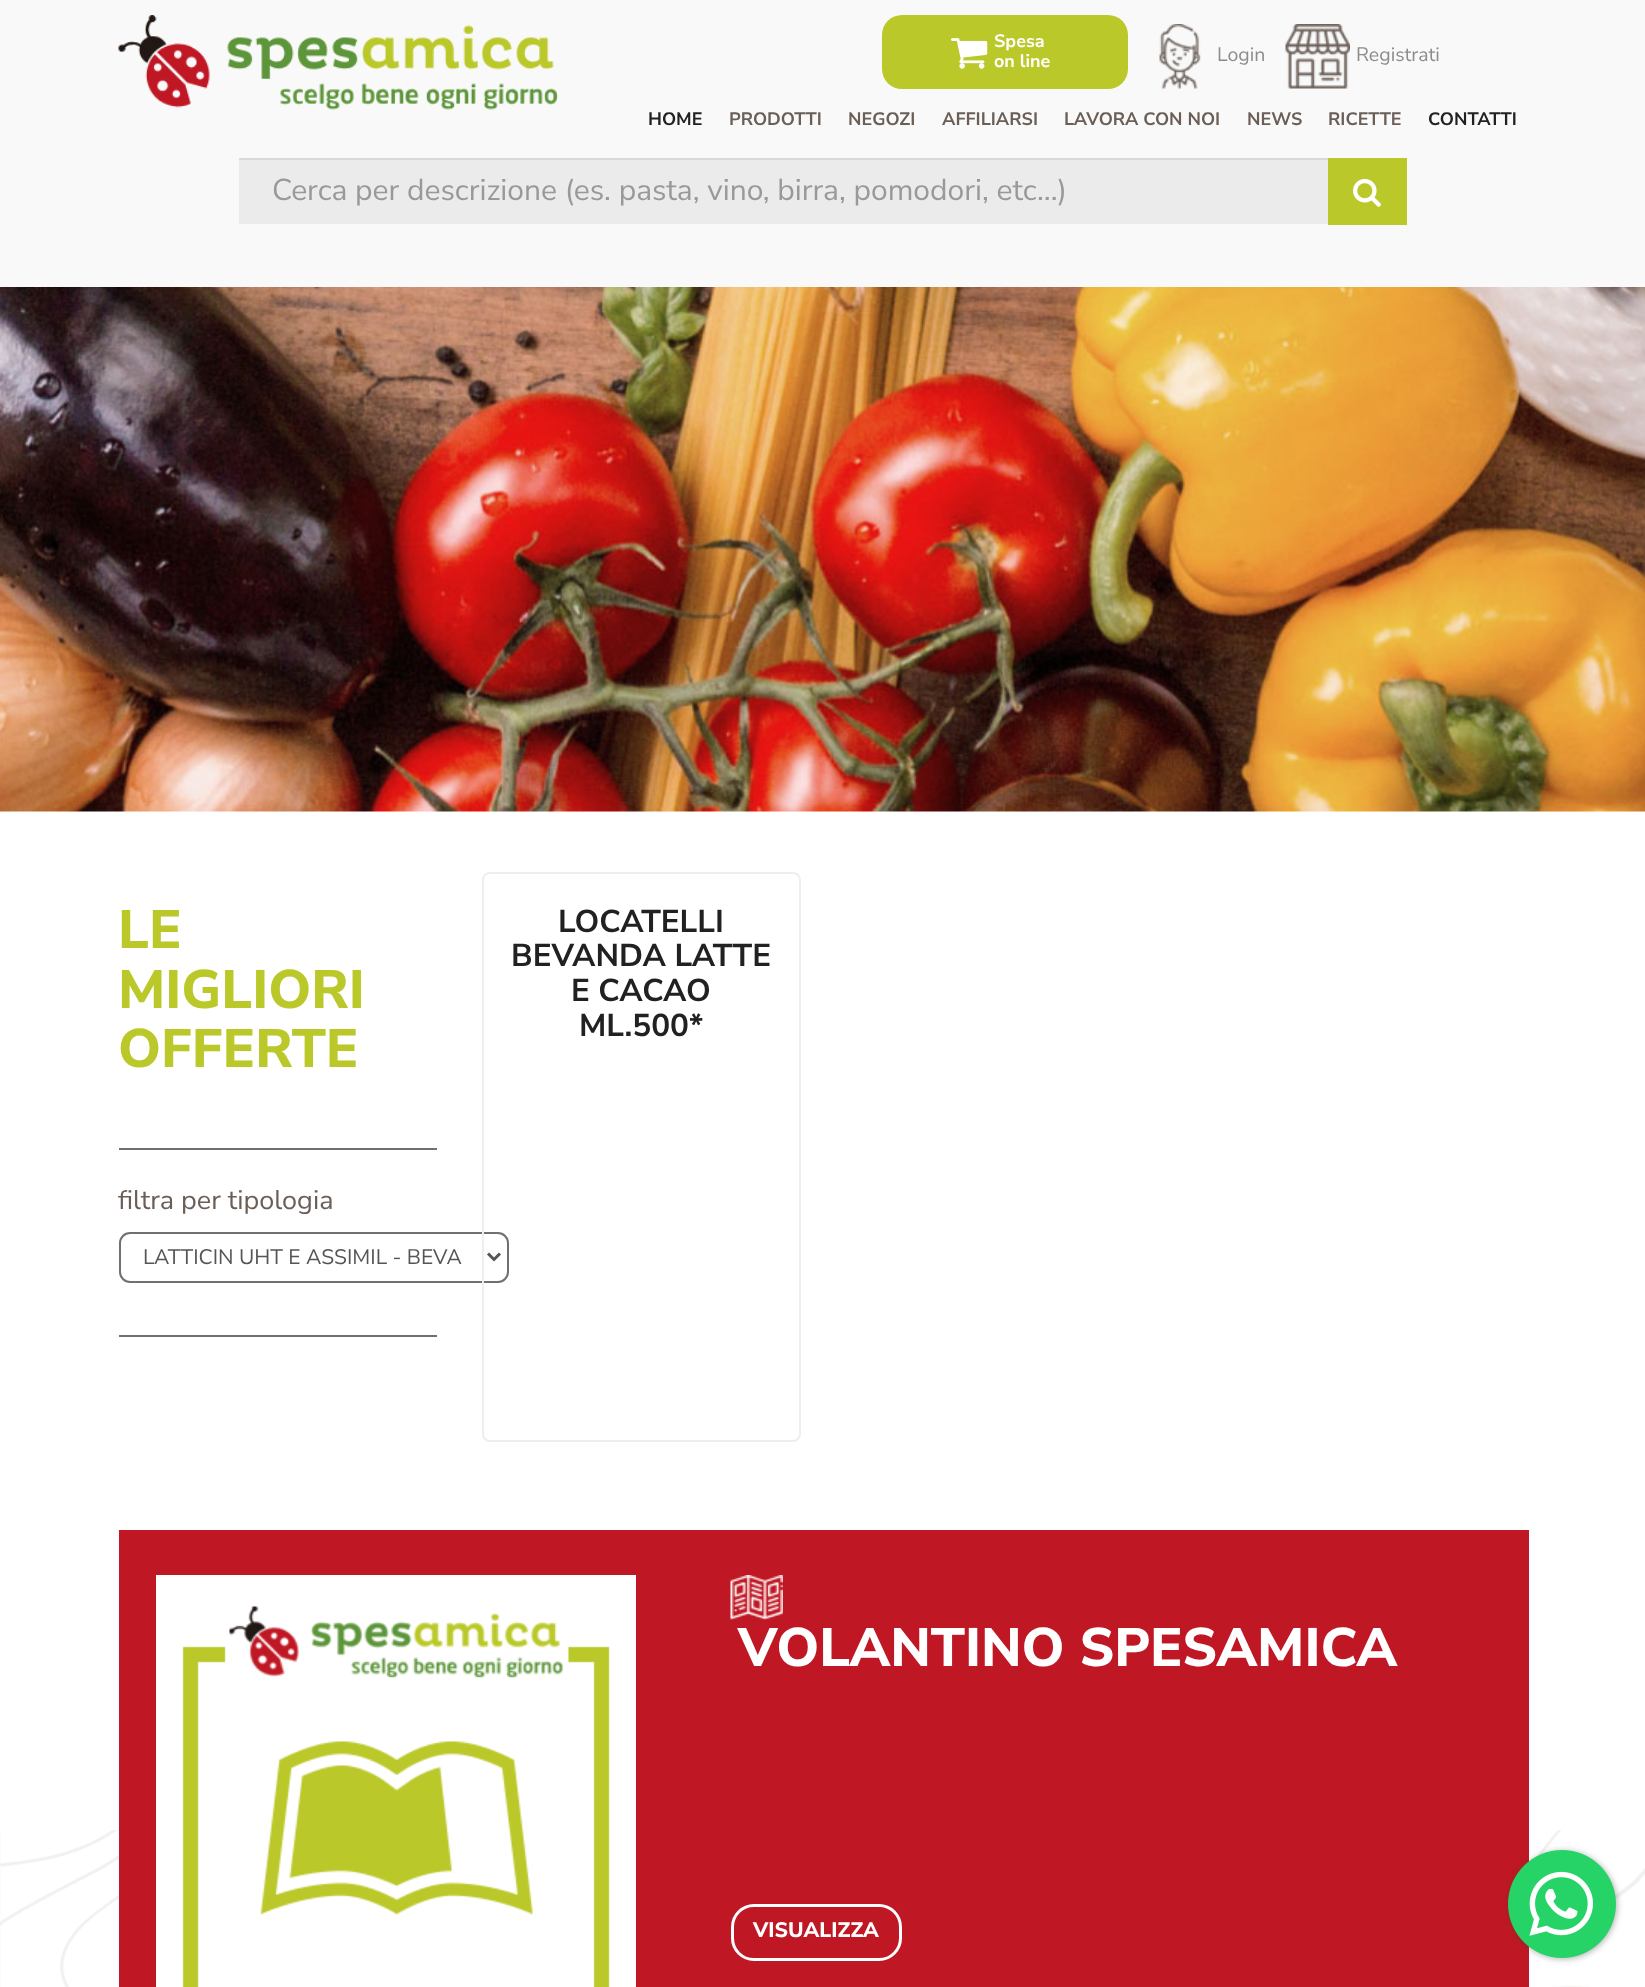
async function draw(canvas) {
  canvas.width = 1645
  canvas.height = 1987
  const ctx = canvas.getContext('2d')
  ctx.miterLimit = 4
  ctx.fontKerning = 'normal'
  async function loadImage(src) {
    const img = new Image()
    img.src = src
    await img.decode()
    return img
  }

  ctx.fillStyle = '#fff'
  ctx.fillRect(0, 0, 1645, 1987)
  ctx.fillStyle = '#f9f9f9'
  ctx.fillRect(0, 0, 1645, 287)
  ctx.drawImage(await loadImage('image0.png'), 118, 15, 440, 95)
  ctx.fillStyle = '#bac929'
  ctx.beginPath()
  ctx.roundRect(882, 15, 246, 74, 20)
  ctx.fill()
  ctx.drawImage(await loadImage('image1.png'), 951, 38, 37, 31)
  ctx.font = 'bold 18px Nunito Sans'
  ctx.fillStyle = '#fff'
  ctx.fillText('Spesa', 994, 47)
  ctx.fillText('on line', 994, 67)
  ctx.drawImage(await loadImage('image2.png'), 1159, 24, 42, 65)
  ctx.font = '19.5px Nunito Sans'
  ctx.fillStyle = '#8c8c8c'
  ctx.fillText('Login', 1217, 61)
  ctx.drawImage(await loadImage('image3.png'), 1285, 24, 65, 65)
  ctx.fillText('Registrati', 1356, 61)
  ctx.font = 'bold 18px Nunito Sans'
  ctx.fillStyle = '#212121'
  ctx.fillText('HOME', 648, 125)
  ctx.fillStyle = '#6a5e57'
  ctx.fillText('PRODOTTI', 729, 125)
  ctx.fillText('NEGOZI', 848, 125)
  ctx.fillText('AFFILIARSI', 942, 125)
  ctx.fillText('LAVORA CON NOI', 1064, 125)
  ctx.fillText('NEWS', 1247, 125)
  ctx.fillText('RICETTE', 1328, 125)
  ctx.fillStyle = '#212121'
  ctx.fillText('CONTATTI', 1428, 125)
  ctx.fillStyle = '#ebebeb'
  ctx.fillRect(239, 160, 1089, 64)
  ctx.fillStyle = '#d9d9d9'
  ctx.fillRect(239, 158, 1090, 2)
  ctx.font = '30px Nunito Sans'
  ctx.fillStyle = '#999'
  ctx.fillText('Cerca per descrizione (es. pasta, vino, birra, pomodori, etc...)', 272, 200)
  ctx.fillStyle = '#bac929'
  ctx.fillRect(1328, 158, 79, 67)
  ctx.drawImage(await loadImage('image4.png'), 1353, 178, 28, 29)
  ctx.drawImage(await loadImage('image5.png'), 0, 287, 1645, 525)
  ctx.font = '800 54px Nunito Sans'
  ctx.fillText('LE', 118, 948)
  ctx.fillText('MIGLIORI', 118, 1008)
  ctx.fillText('OFFERTE', 118, 1067)
  ctx.fillStyle = '#707070'
  ctx.fillRect(119, 1148, 318, 2)
  ctx.font = '27px Nunito Sans'
  ctx.fillStyle = '#6a5e57'
  ctx.fillText('filtra per tipologia', 118, 1209)
  ctx.fillStyle = '#ececec'
  ctx.beginPath()
  ctx.moveTo(129, 1234)
  ctx.lineTo(498, 1234)
  ctx.bezierCurveTo(503, 1234, 507, 1239, 507, 1244)
  ctx.lineTo(507, 1242)
  ctx.bezierCurveTo(507, 1237, 503, 1233, 498, 1233)
  ctx.lineTo(129, 1233)
  ctx.bezierCurveTo(124, 1233, 120, 1237, 120, 1242)
  ctx.lineTo(120, 1244)
  ctx.bezierCurveTo(120, 1239, 124, 1234, 129, 1234)
  ctx.closePath()
  ctx.fill()
  ctx.beginPath()
  ctx.roundRect(120, 1233, 388, 49, 10)
  ctx.strokeStyle = '#707070'
  ctx.lineWidth = 2
  ctx.stroke()
  ctx.beginPath()
  ctx.moveTo(488, 1253.5)
  ctx.lineTo(494, 1259.5)
  ctx.lineTo(500, 1253.5)
  ctx.strokeStyle = '#555'
  ctx.lineWidth = 3
  ctx.stroke()
  ctx.font = '21px Nunito Sans'
  ctx.fillStyle = '#555'
  ctx.fillText('LATTICIN UHT E ASSIMIL - BEVA', 143, 1264)
  ctx.fillStyle = '#707070'
  ctx.fillRect(119, 1335, 318, 2)
  ctx.beginPath()
  ctx.roundRect(483, 873, 317, 568, 7)
  ctx.strokeStyle = '#eee'
  ctx.lineWidth = 2
  ctx.stroke()
  ctx.font = 'bold 31.5px Nunito Sans'
  ctx.fillStyle = '#212121'
  ctx.fillText('LOCATELLI', 558, 932)
  ctx.fillText('BEVANDA LATTE', 511, 966)
  ctx.fillText('E CACAO', 571, 1001)
  ctx.fillText('ML.500*', 579, 1036)
  ctx.drawImage(await loadImage('image6.png'), 0, 1830, 1645, 157)
  ctx.fillStyle = '#bf1824'
  ctx.fillRect(119, 1530, 1410, 457)
  ctx.drawImage(await loadImage('image7.png'), 156, 1575, 480, 412)
  ctx.drawImage(await loadImage('image8.png'), 730, 1575, 53, 45)
  ctx.font = '800 54px Nunito Sans'
  ctx.fillStyle = '#fff'
  ctx.fillText('VOLANTINO SPESAMICA', 738, 1666)
  ctx.beginPath()
  ctx.roundRect(732.5, 1905.5, 168, 54, 21.5)
  ctx.strokeStyle = '#fff'
  ctx.lineWidth = 3
  ctx.stroke()
  ctx.font = '800 21px Nunito Sans'
  ctx.fillText('VISUALIZZA', 753, 1937)
  ctx.fillStyle = '#3c3c3c66'
  ctx.filter = 'blur(3px)'
  ctx.beginPath()
  ctx.roundRect(1509, 1851, 108, 108, 54)
  ctx.fill()
  ctx.filter = 'none'
  ctx.drawImage(await loadImage('image9.png'), 1508, 1850, 108, 108)
}

draw(document.querySelector('canvas'))
